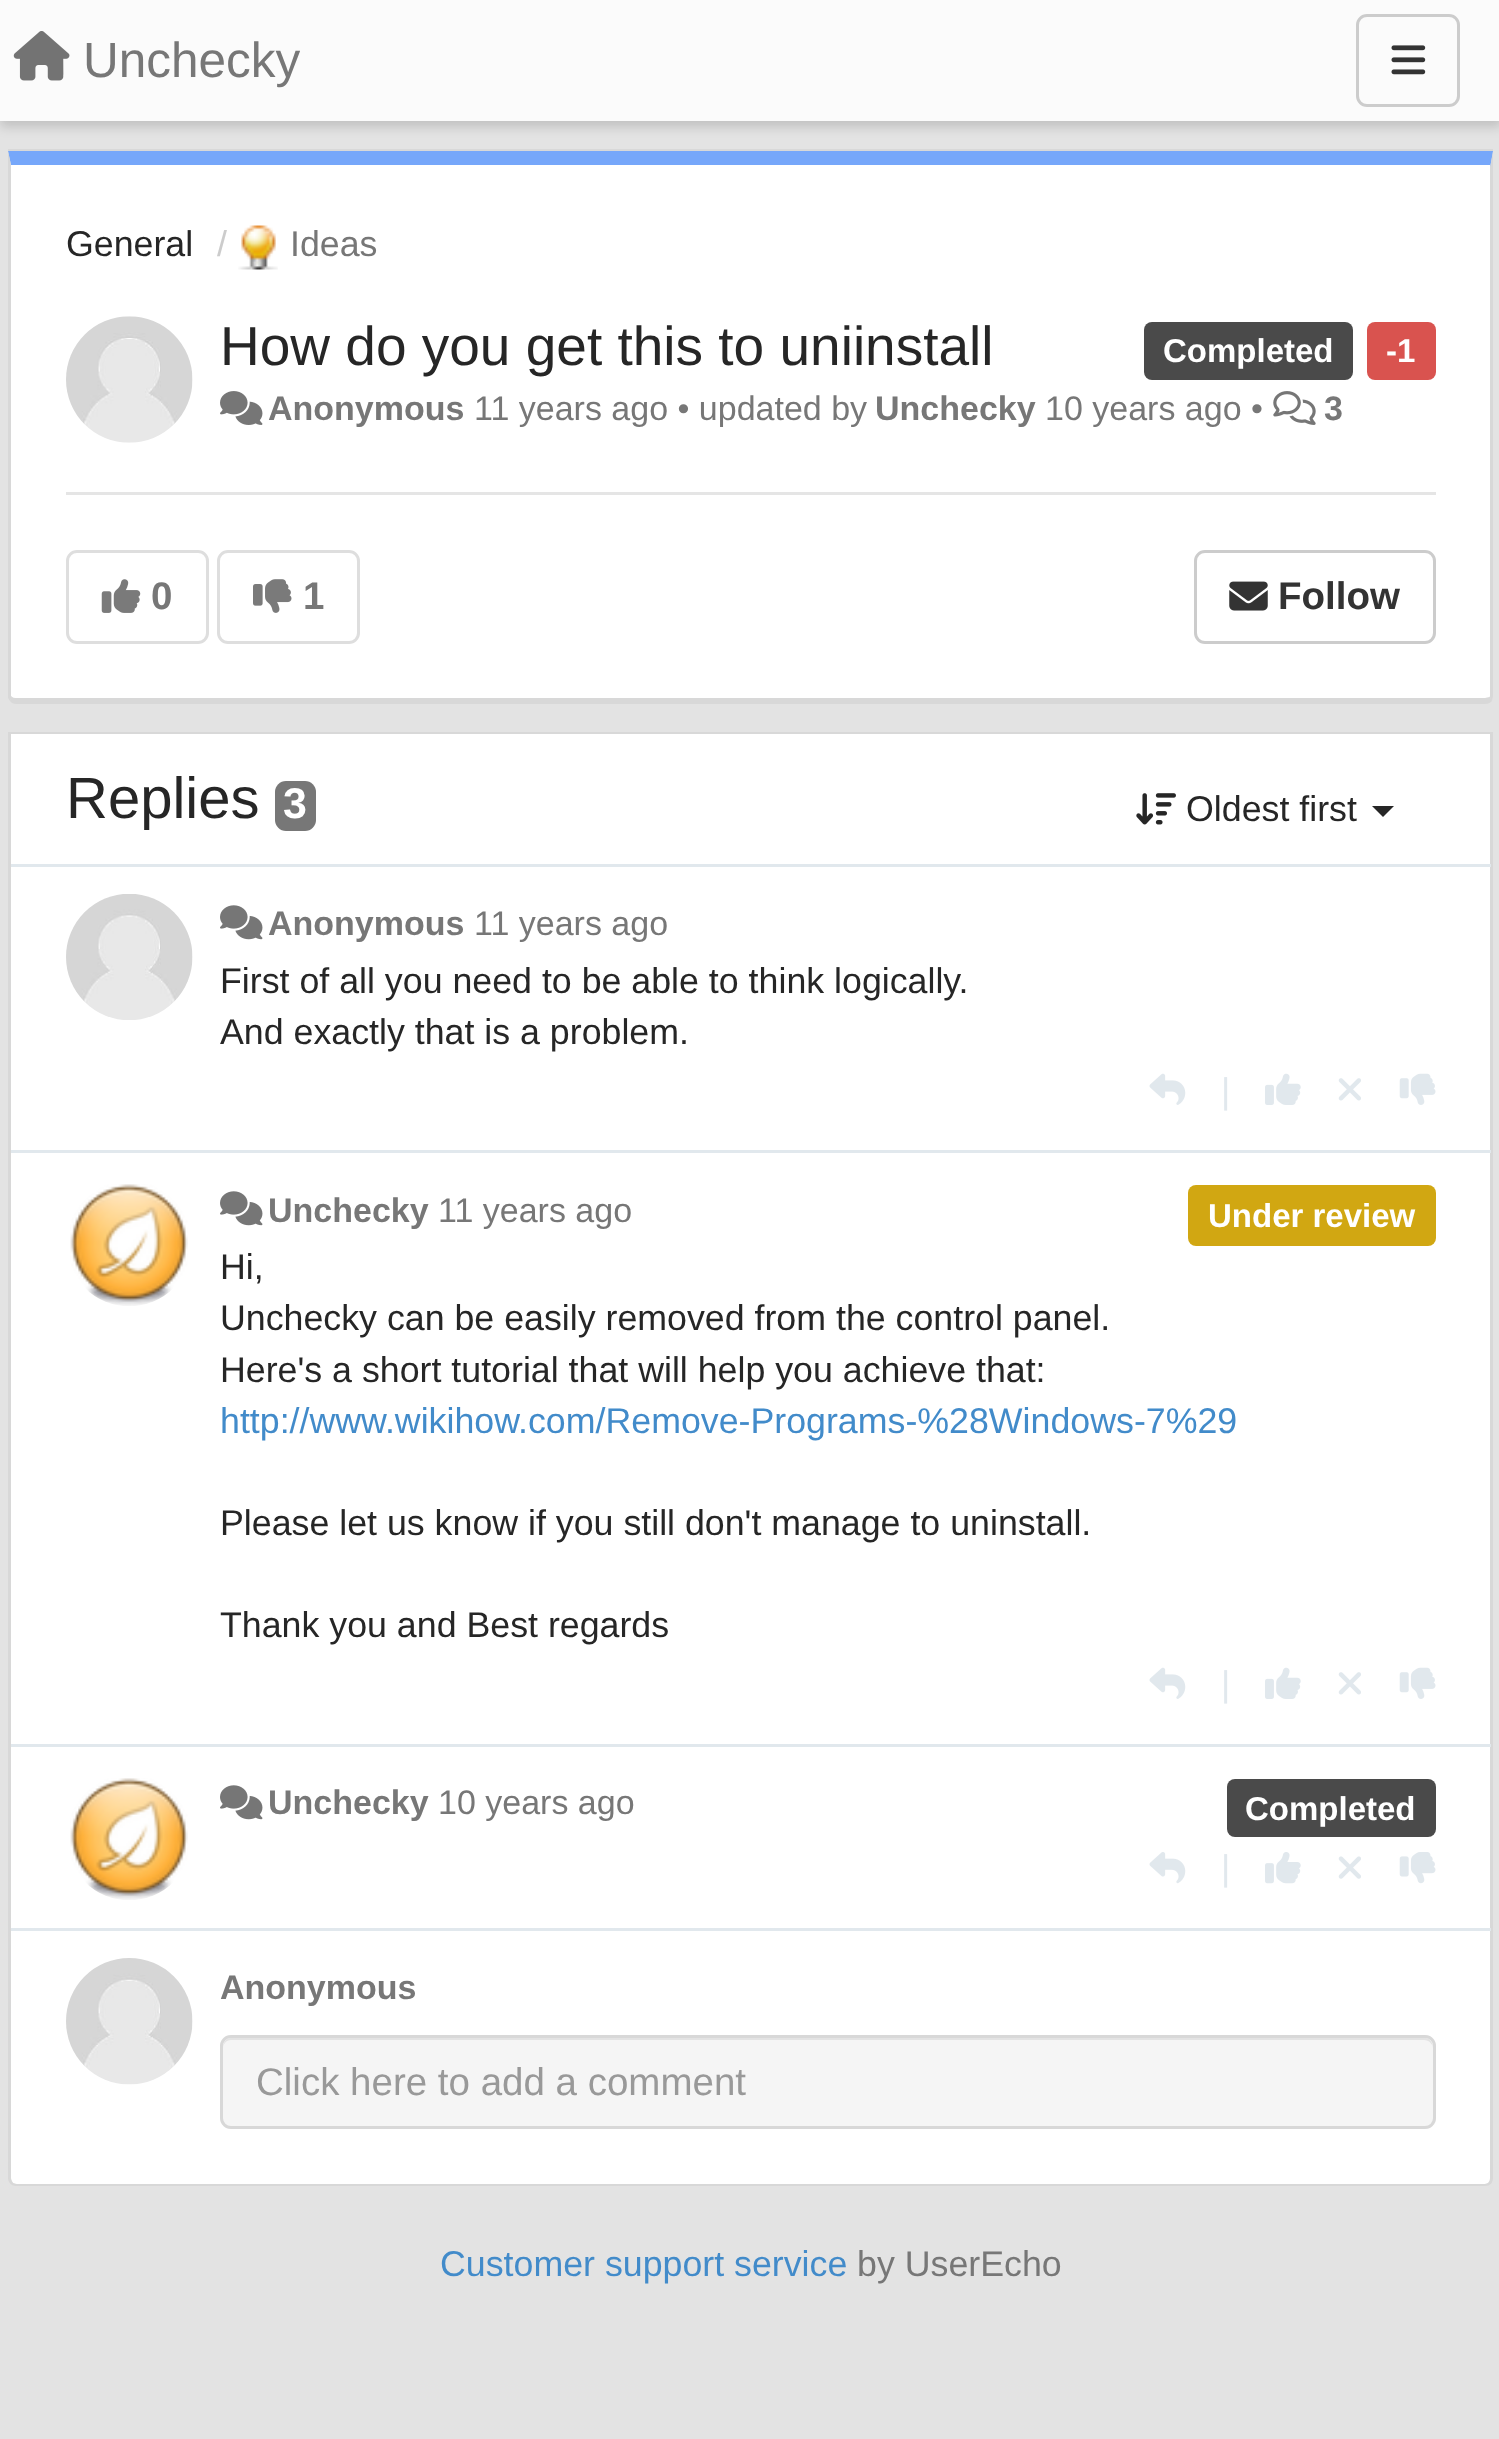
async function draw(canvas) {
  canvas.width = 1499
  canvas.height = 2439
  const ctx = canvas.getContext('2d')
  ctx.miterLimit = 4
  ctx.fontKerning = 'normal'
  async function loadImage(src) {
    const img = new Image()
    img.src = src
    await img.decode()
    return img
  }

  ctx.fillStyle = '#e3e3e3'
  ctx.fillRect(0, 0, 1499, 2439)
  ctx.fillStyle = '#00000026'
  ctx.filter = 'blur(5.5px)'
  ctx.beginPath()
  ctx.rect(0, 6, 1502, 121)
  ctx.fill()
  ctx.filter = 'none'
  ctx.fillStyle = '#fbfbfb'
  ctx.fillRect(0, 0, 1499, 121)
  ctx.drawImage(await loadImage('image0.png'), 13, 31, 57, 50)
  ctx.font = '49.5px Liberation Sans'
  ctx.fillStyle = '#777'
  ctx.fillText('Unchecky', 83, 77)
  ctx.beginPath()
  ctx.roundRect(1357.5, 15.5, 101, 90, 9.5)
  ctx.strokeStyle = '#ccc'
  ctx.lineWidth = 3
  ctx.stroke()
  ctx.drawImage(await loadImage('image1.png'), 1391, 45, 35, 30)
  ctx.fillStyle = '#d8d8d8'
  ctx.fillRect(8, 149, 1485, 3)
  ctx.fillStyle = '#fff'
  ctx.beginPath()
  ctx.moveTo(11, 165)
  ctx.lineTo(1490, 165)
  ctx.lineTo(1490, 696)
  ctx.bezierCurveTo(1490, 697, 1488, 698, 1485, 698)
  ctx.lineTo(16, 698)
  ctx.bezierCurveTo(13, 698, 11, 697, 11, 696)
  ctx.closePath()
  ctx.fill()
  ctx.fillStyle = '#76a7fa'
  ctx.beginPath()
  ctx.moveTo(11, 165)
  ctx.lineTo(8, 151)
  ctx.lineTo(1493, 151)
  ctx.lineTo(1490, 168)
  ctx.lineTo(1490, 165)
  ctx.closePath()
  ctx.fill()
  ctx.fillStyle = '#d8d8d8'
  ctx.beginPath()
  ctx.moveTo(1493, 152)
  ctx.lineTo(1493, 696)
  ctx.bezierCurveTo(1493, 698, 1492, 699, 1492, 701)
  ctx.lineTo(1490, 697)
  ctx.lineTo(1490, 696)
  ctx.lineTo(1490, 168)
  ctx.closePath()
  ctx.fill()
  ctx.beginPath()
  ctx.moveTo(16, 704)
  ctx.lineTo(1485, 704)
  ctx.bezierCurveTo(1488, 704, 1490, 703, 1492, 701)
  ctx.lineTo(1490, 697)
  ctx.bezierCurveTo(1489, 697, 1487, 698, 1485, 698)
  ctx.lineTo(16, 698)
  ctx.bezierCurveTo(14, 698, 13, 698, 12, 697)
  ctx.lineTo(10, 701)
  ctx.bezierCurveTo(11, 703, 14, 704, 16, 704)
  ctx.closePath()
  ctx.fill()
  ctx.beginPath()
  ctx.moveTo(11, 165)
  ctx.lineTo(11, 696)
  ctx.lineTo(12, 697)
  ctx.lineTo(10, 701)
  ctx.lineTo(8, 698)
  ctx.lineTo(8, 151)
  ctx.closePath()
  ctx.fill()
  ctx.font = '35.75px Liberation Sans'
  ctx.fillStyle = '#262626'
  ctx.fillText('General', 66, 256)
  ctx.fillStyle = '#ccc'
  ctx.fillText('/', 217, 256)
  ctx.drawImage(await loadImage('image2.png'), 238, 225, 40, 45)
  ctx.fillStyle = '#777'
  ctx.fillText('Ideas', 290, 256)
  ctx.drawImage(await loadImage('image3.png'), 66, 316, 127, 127)
  ctx.font = '55px Liberation Sans'
  ctx.fillStyle = '#262626'
  ctx.fillText('How do you get this to uniinstall', 220, 365)
  ctx.fillStyle = '#4a4a4a'
  ctx.beginPath()
  ctx.roundRect(1144, 322, 209, 58, 8)
  ctx.fill()
  ctx.font = 'bold 33px Liberation Sans'
  ctx.fillStyle = '#fff'
  ctx.fillText('Completed', 1163, 362)
  ctx.fillStyle = '#d9534f'
  ctx.beginPath()
  ctx.roundRect(1367, 322, 69, 58, 8)
  ctx.fill()
  ctx.fillStyle = '#fff'
  ctx.fillText('-1', 1386, 362)
  ctx.drawImage(await loadImage('image4.png'), 220, 391, 43, 34)
  ctx.font = 'bold 34px Liberation Sans'
  ctx.fillStyle = '#777'
  ctx.fillText('Anonymous', 268, 420)
  ctx.font = '34px Liberation Sans'
  ctx.fillText('11 years ago • updated by', 474, 420)
  ctx.font = 'bold 34px Liberation Sans'
  ctx.fillText('Unchecky', 875, 420)
  ctx.font = '34px Liberation Sans'
  ctx.fillText('10 years ago •', 1045, 420)
  ctx.drawImage(await loadImage('image5.png'), 1273, 391, 43, 34)
  ctx.font = 'bold 34px Liberation Sans'
  ctx.fillText('3', 1324, 420)
  ctx.fillStyle = '#e5e5e5'
  ctx.fillRect(66, 492, 1370, 3)
  ctx.beginPath()
  ctx.roundRect(67.5, 551.5, 140, 91, 9.5)
  ctx.strokeStyle = '#dedede'
  ctx.stroke()
  ctx.drawImage(await loadImage('image6.png'), 101, 579, 40, 34)
  ctx.font = 'bold 38.5px Liberation Sans'
  ctx.fillStyle = '#777'
  ctx.fillText('0', 151, 609)
  ctx.beginPath()
  ctx.roundRect(218.5, 551.5, 140, 91, 9.5)
  ctx.stroke()
  ctx.drawImage(await loadImage('image7.png'), 253, 579, 39, 34)
  ctx.fillText('1', 303, 609)
  ctx.beginPath()
  ctx.roundRect(1195.5, 551.5, 239, 91, 9.5)
  ctx.strokeStyle = '#ccc'
  ctx.stroke()
  ctx.drawImage(await loadImage('image8.png'), 1229, 581, 39, 30)
  ctx.fillStyle = '#333'
  ctx.fillText('Follow', 1278, 609)
  ctx.fillStyle = '#d8d8d8'
  ctx.fillRect(8, 732, 1485, 2)
  ctx.fillStyle = '#fff'
  ctx.beginPath()
  ctx.roundRect(11, 734, 1480, 1450, [0, 0, 6, 6])
  ctx.fill()
  ctx.fillStyle = '#d8d8d8'
  ctx.beginPath()
  ctx.moveTo(8, 734)
  ctx.lineTo(1493, 734)
  ctx.lineTo(1493, 2178)
  ctx.bezierCurveTo(1493, 2183, 1490, 2186, 1485, 2186)
  ctx.lineTo(16, 2186)
  ctx.bezierCurveTo(12, 2186, 8, 2183, 8, 2178)
  ctx.closePath()
  ctx.moveTo(11, 734)
  ctx.lineTo(1490, 734)
  ctx.lineTo(1490, 2178)
  ctx.bezierCurveTo(1490, 2181, 1488, 2184, 1485, 2184)
  ctx.lineTo(16, 2184)
  ctx.bezierCurveTo(13, 2184, 11, 2181, 11, 2178)
  ctx.closePath()
  ctx.fill('evenodd')
  ctx.font = '58px Liberation Sans'
  ctx.fillStyle = '#262626'
  ctx.fillText('Replies', 66, 818)
  ctx.fillStyle = '#777'
  ctx.beginPath()
  ctx.roundRect(275, 781, 41, 50, 11)
  ctx.fill()
  ctx.font = 'bold 43px Liberation Sans'
  ctx.fillStyle = '#fff'
  ctx.fillText('3', 283, 818)
  ctx.drawImage(await loadImage('image9.png'), 1136, 793, 40, 32)
  ctx.font = '35.75px Liberation Sans'
  ctx.fillStyle = '#262626'
  ctx.fillText('Oldest first', 1186, 821)
  ctx.beginPath()
  ctx.moveTo(1372, 806)
  ctx.lineTo(1394, 806)
  ctx.lineTo(1383, 817)
  ctx.closePath()
  ctx.fill()
  ctx.fillStyle = '#e1e8ed'
  ctx.fillRect(11, 864, 1480, 3)
  ctx.fillRect(11, 1150, 1480, 3)
  ctx.drawImage(await loadImage('image10.png'), 66, 894, 127, 126)
  ctx.drawImage(await loadImage('image11.png'), 220, 905, 43, 35)
  ctx.font = 'bold 34px Liberation Sans'
  ctx.fillStyle = '#777'
  ctx.fillText('Anonymous', 268, 935)
  ctx.font = '34px Liberation Sans'
  ctx.fillText('11 years ago', 474, 935)
  ctx.font = '35.75px Liberation Sans'
  ctx.fillStyle = '#262626'
  ctx.fillText('First of all you need to be able to think logically.', 220, 993)
  ctx.fillText('And exactly that is a problem.', 220, 1044)
  ctx.drawImage(await loadImage('image12.png'), 1149, 1073, 37, 32)
  ctx.fillStyle = '#e1e8ed'
  ctx.fillText('|', 1221, 1103)
  ctx.drawImage(await loadImage('image13.png'), 1265, 1073, 36, 32)
  ctx.drawImage(await loadImage('image14.png'), 1338, 1078, 23, 23)
  ctx.drawImage(await loadImage('image15.png'), 1399, 1073, 37, 32)
  ctx.fillRect(11, 1744, 1480, 3)
  ctx.drawImage(await loadImage('image16.png'), 70, 1184, 118, 122)
  ctx.drawImage(await loadImage('image11.png'), 220, 1191, 43, 35)
  ctx.font = 'bold 34px Liberation Sans'
  ctx.fillStyle = '#777'
  ctx.fillText('Unchecky', 268, 1222)
  ctx.font = '34px Liberation Sans'
  ctx.fillText('11 years ago', 438, 1222)
  ctx.fillStyle = '#d1a712'
  ctx.beginPath()
  ctx.roundRect(1188, 1185, 248, 61, 8)
  ctx.fill()
  ctx.font = 'bold 33px Liberation Sans'
  ctx.fillStyle = '#fff'
  ctx.fillText('Under review', 1208, 1227)
  ctx.font = '35.75px Liberation Sans'
  ctx.fillStyle = '#262626'
  ctx.fillText('Hi,', 220, 1279)
  ctx.fillText('Unchecky can be easily removed from the control panel.', 220, 1330)
  ctx.fillText('Here\'s a short tutorial that will help you achieve that:', 220, 1382)
  ctx.fillStyle = '#428bca'
  ctx.fillText('http://www.wikihow.com/Remove-Programs-%28Windows-7%29', 220, 1433)
  ctx.fillStyle = '#262626'
  ctx.fillText('Please let us know if you still don\'t manage to uninstall.', 220, 1535)
  ctx.fillText('Thank you and Best regards', 220, 1637)
  ctx.drawImage(await loadImage('image12.png'), 1149, 1667, 37, 32)
  ctx.fillStyle = '#e1e8ed'
  ctx.fillText('|', 1221, 1696)
  ctx.drawImage(await loadImage('image13.png'), 1265, 1667, 36, 32)
  ctx.drawImage(await loadImage('image14.png'), 1338, 1672, 23, 23)
  ctx.drawImage(await loadImage('image15.png'), 1399, 1667, 37, 32)
  ctx.fillRect(11, 1928, 1480, 3)
  ctx.drawImage(await loadImage('image16.png'), 70, 1778, 118, 122)
  ctx.drawImage(await loadImage('image11.png'), 220, 1785, 43, 35)
  ctx.font = 'bold 34px Liberation Sans'
  ctx.fillStyle = '#777'
  ctx.fillText('Unchecky', 268, 1814)
  ctx.font = '34px Liberation Sans'
  ctx.fillText('10 years ago', 438, 1814)
  ctx.fillStyle = '#4a4a4a'
  ctx.beginPath()
  ctx.roundRect(1227, 1779, 209, 58, 8)
  ctx.fill()
  ctx.font = 'bold 33px Liberation Sans'
  ctx.fillStyle = '#fff'
  ctx.fillText('Completed', 1245, 1820)
  ctx.drawImage(await loadImage('image17.png'), 1149, 1852, 37, 32)
  ctx.font = '35.75px Liberation Sans'
  ctx.fillStyle = '#e1e8ed'
  ctx.fillText('|', 1221, 1880)
  ctx.drawImage(await loadImage('image18.png'), 1265, 1852, 36, 32)
  ctx.drawImage(await loadImage('image19.png'), 1338, 1856, 23, 23)
  ctx.drawImage(await loadImage('image20.png'), 1399, 1852, 37, 32)
  ctx.drawImage(await loadImage('image21.png'), 66, 1958, 127, 127)
  ctx.font = 'bold 34px Liberation Sans'
  ctx.fillStyle = '#777'
  ctx.fillText('Anonymous', 220, 1999)
  ctx.fillStyle = '#f5f5f5'
  ctx.beginPath()
  ctx.roundRect(220, 2035, 1216, 94, 11)
  ctx.fill()
  ctx.fillStyle = '#e3e3e3'
  ctx.beginPath()
  ctx.moveTo(231, 2040)
  ctx.lineTo(1424, 2040)
  ctx.bezierCurveTo(1429, 2040, 1433, 2044, 1433, 2049)
  ctx.bezierCurveTo(1433, 2044, 1431, 2038, 1425, 2038)
  ctx.lineTo(231, 2038)
  ctx.bezierCurveTo(225, 2038, 223, 2044, 223, 2049)
  ctx.bezierCurveTo(223, 2044, 226, 2040, 231, 2040)
  ctx.closePath()
  ctx.fill()
  ctx.beginPath()
  ctx.roundRect(221.5, 2036.5, 1213, 91, 9.5)
  ctx.strokeStyle = '#d8d8d8'
  ctx.stroke()
  ctx.font = '38.5px Liberation Sans'
  ctx.fillStyle = '#999'
  ctx.fillText('Click here to add a comment', 256, 2095)
  ctx.font = '35.75px Liberation Sans'
  ctx.fillStyle = '#428bca'
  ctx.fillText('Customer support service', 440, 2276)
  ctx.fillStyle = '#777'
  ctx.fillText('by UserEcho', 857, 2276)
}

draw(document.querySelector('canvas'))
